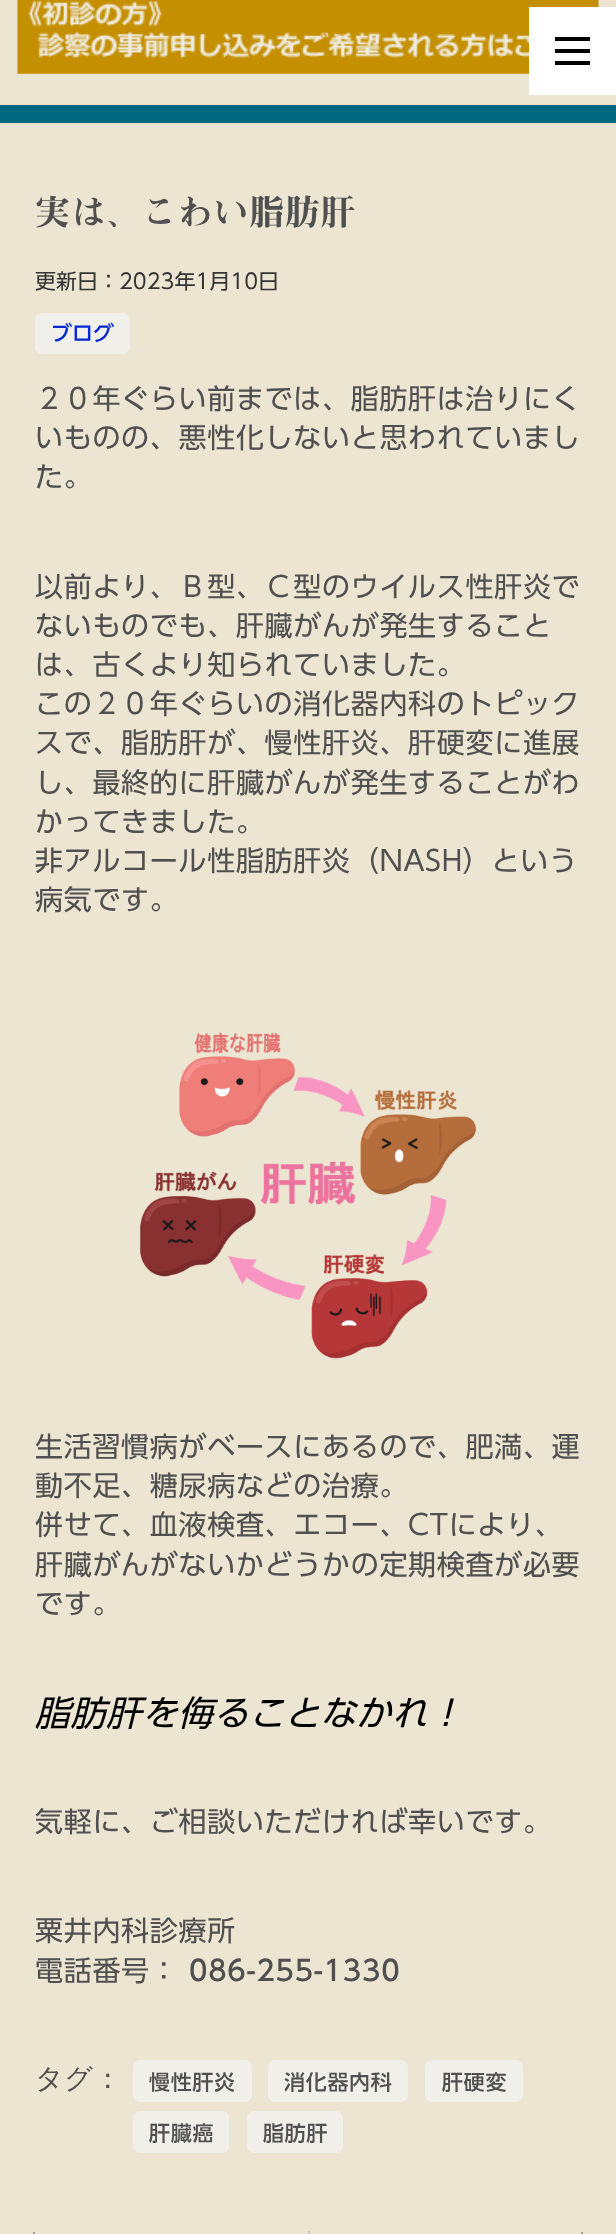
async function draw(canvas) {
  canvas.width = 616
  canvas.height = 2234
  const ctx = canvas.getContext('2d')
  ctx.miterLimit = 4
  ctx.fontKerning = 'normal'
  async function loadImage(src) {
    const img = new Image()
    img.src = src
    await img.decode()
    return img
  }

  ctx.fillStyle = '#ebe5d1'
  ctx.fillRect(0, 0, 616, 2234)
  ctx.drawImage(await loadImage('image0.png'), 17, 0, 582, 74)
  ctx.fillStyle = '#fff'
  ctx.fillRect(529, 7, 87, 88)
  ctx.fillStyle = '#000'
  ctx.fillRect(555, 49, 35, 4)
  ctx.fillRect(555, 37, 35, 4)
  ctx.fillRect(555, 61, 35, 4)
  ctx.fillStyle = '#006980'
  ctx.fillRect(0, 105, 616, 18)
  ctx.letterSpacing = '0.7px'
  ctx.font = '600 35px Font'
  ctx.fillStyle = '#505050'
  ctx.fillText('実は、こわい脂肪肝', 35, 225)
  ctx.letterSpacing = '0px'
  ctx.font = '21px Font'
  ctx.fillStyle = '#343434'
  ctx.fillText('更新日：2023年1月10日', 35, 289)
  ctx.fillStyle = '#f0efe9'
  ctx.beginPath()
  ctx.roundRect(35, 313, 95, 41, 7)
  ctx.fill()
  ctx.font = '500 21px Font'
  ctx.fillStyle = '#0329ce'
  ctx.fillText('ブログ', 51, 341)
  ctx.letterSpacing = '0.7px'
  ctx.font = '28px Font'
  ctx.fillStyle = '#505050'
  ctx.fillText('２０年ぐらい前までは、脂肪肝は治りにく', 35, 409)
  ctx.fillText('いものの、悪性化しないと思われていまし', 35, 448)
  ctx.fillText('た。', 35, 487)
  ctx.fillText('以前より、Ｂ型、Ｃ型のウイルス性肝炎で', 35, 597)
  ctx.fillText('ないものでも、肝臓がんが発生すること', 35, 636)
  ctx.fillText('は、古くより知られていました。', 35, 675)
  ctx.fillText('この２０年ぐらいの消化器内科のトピック', 35, 714)
  ctx.fillText('スで、脂肪肝が、慢性肝炎、肝硬変に進展', 35, 753)
  ctx.fillText('し、最終的に肝臓がんが発生することがわ', 35, 793)
  ctx.fillText('かってきました。', 35, 832)
  ctx.fillText('非アルコール性脂肪肝炎（NASH）という', 35, 871)
  ctx.fillText('病気です。', 35, 910)
  ctx.drawImage(await loadImage('image1.png'), 139, 1032, 338, 327)
  ctx.fillText('生活習慣病がベースにあるので、肥満、運', 35, 1457)
  ctx.fillText('動不足、糖尿病などの治療。', 35, 1496)
  ctx.fillText('併せて、血液検査、エコー、CTにより、', 35, 1535)
  ctx.fillText('肝臓がんがないかどうかの定期検査が必要', 35, 1575)
  ctx.fillText('です。', 35, 1614)
  ctx.font = 'italic 35px Font'
  ctx.fillStyle = '#000'
  ctx.fillText('脂肪肝を侮ることなかれ！', 35, 1726)
  ctx.font = '28px Font'
  ctx.fillStyle = '#505050'
  ctx.fillText('気軽に、ご相談いただければ幸いです。', 35, 1832)
  ctx.fillText('粟井内科診療所', 35, 1941)
  ctx.fillText('電話番号：', 35, 1981)
  ctx.font = '500 28px Font'
  ctx.fillText('086-255-1330', 189, 1981)
  ctx.font = '500 28px WenQuanYi Zen Hei'
  ctx.fillText('タグ：', 35, 2088)
  ctx.fillStyle = '#f0efe9'
  ctx.beginPath()
  ctx.roundRect(133, 2060, 119, 42, 7)
  ctx.fill()
  ctx.font = '500 21px Font'
  ctx.fillStyle = '#505050'
  ctx.fillText('慢性肝炎', 149, 2090)
  ctx.fillStyle = '#f0efe9'
  ctx.beginPath()
  ctx.roundRect(268, 2060, 140, 42, 7)
  ctx.fill()
  ctx.fillStyle = '#505050'
  ctx.fillText('消化器内科', 284, 2090)
  ctx.fillStyle = '#f0efe9'
  ctx.beginPath()
  ctx.roundRect(425, 2060, 98, 42, 7)
  ctx.fill()
  ctx.fillStyle = '#505050'
  ctx.fillText('肝硬変', 442, 2090)
  ctx.fillStyle = '#f0efe9'
  ctx.beginPath()
  ctx.roundRect(133, 2111, 96, 42, 7)
  ctx.fill()
  ctx.fillStyle = '#505050'
  ctx.fillText('肝臓癌', 149, 2141)
  ctx.fillStyle = '#f0efe9'
  ctx.beginPath()
  ctx.roundRect(247, 2111, 96, 42, 7)
  ctx.fill()
  ctx.fillStyle = '#505050'
  ctx.fillText('脂肪肝', 263, 2141)
  ctx.drawImage(await loadImage('image2.png'), 33, 2232, 2, 2)
  ctx.fillStyle = '#ccc'
  ctx.fillRect(308, 2231, 2, 3)
  ctx.drawImage(await loadImage('image3.png'), 581, 2232, 2, 2)
}

draw(document.querySelector('canvas'))
